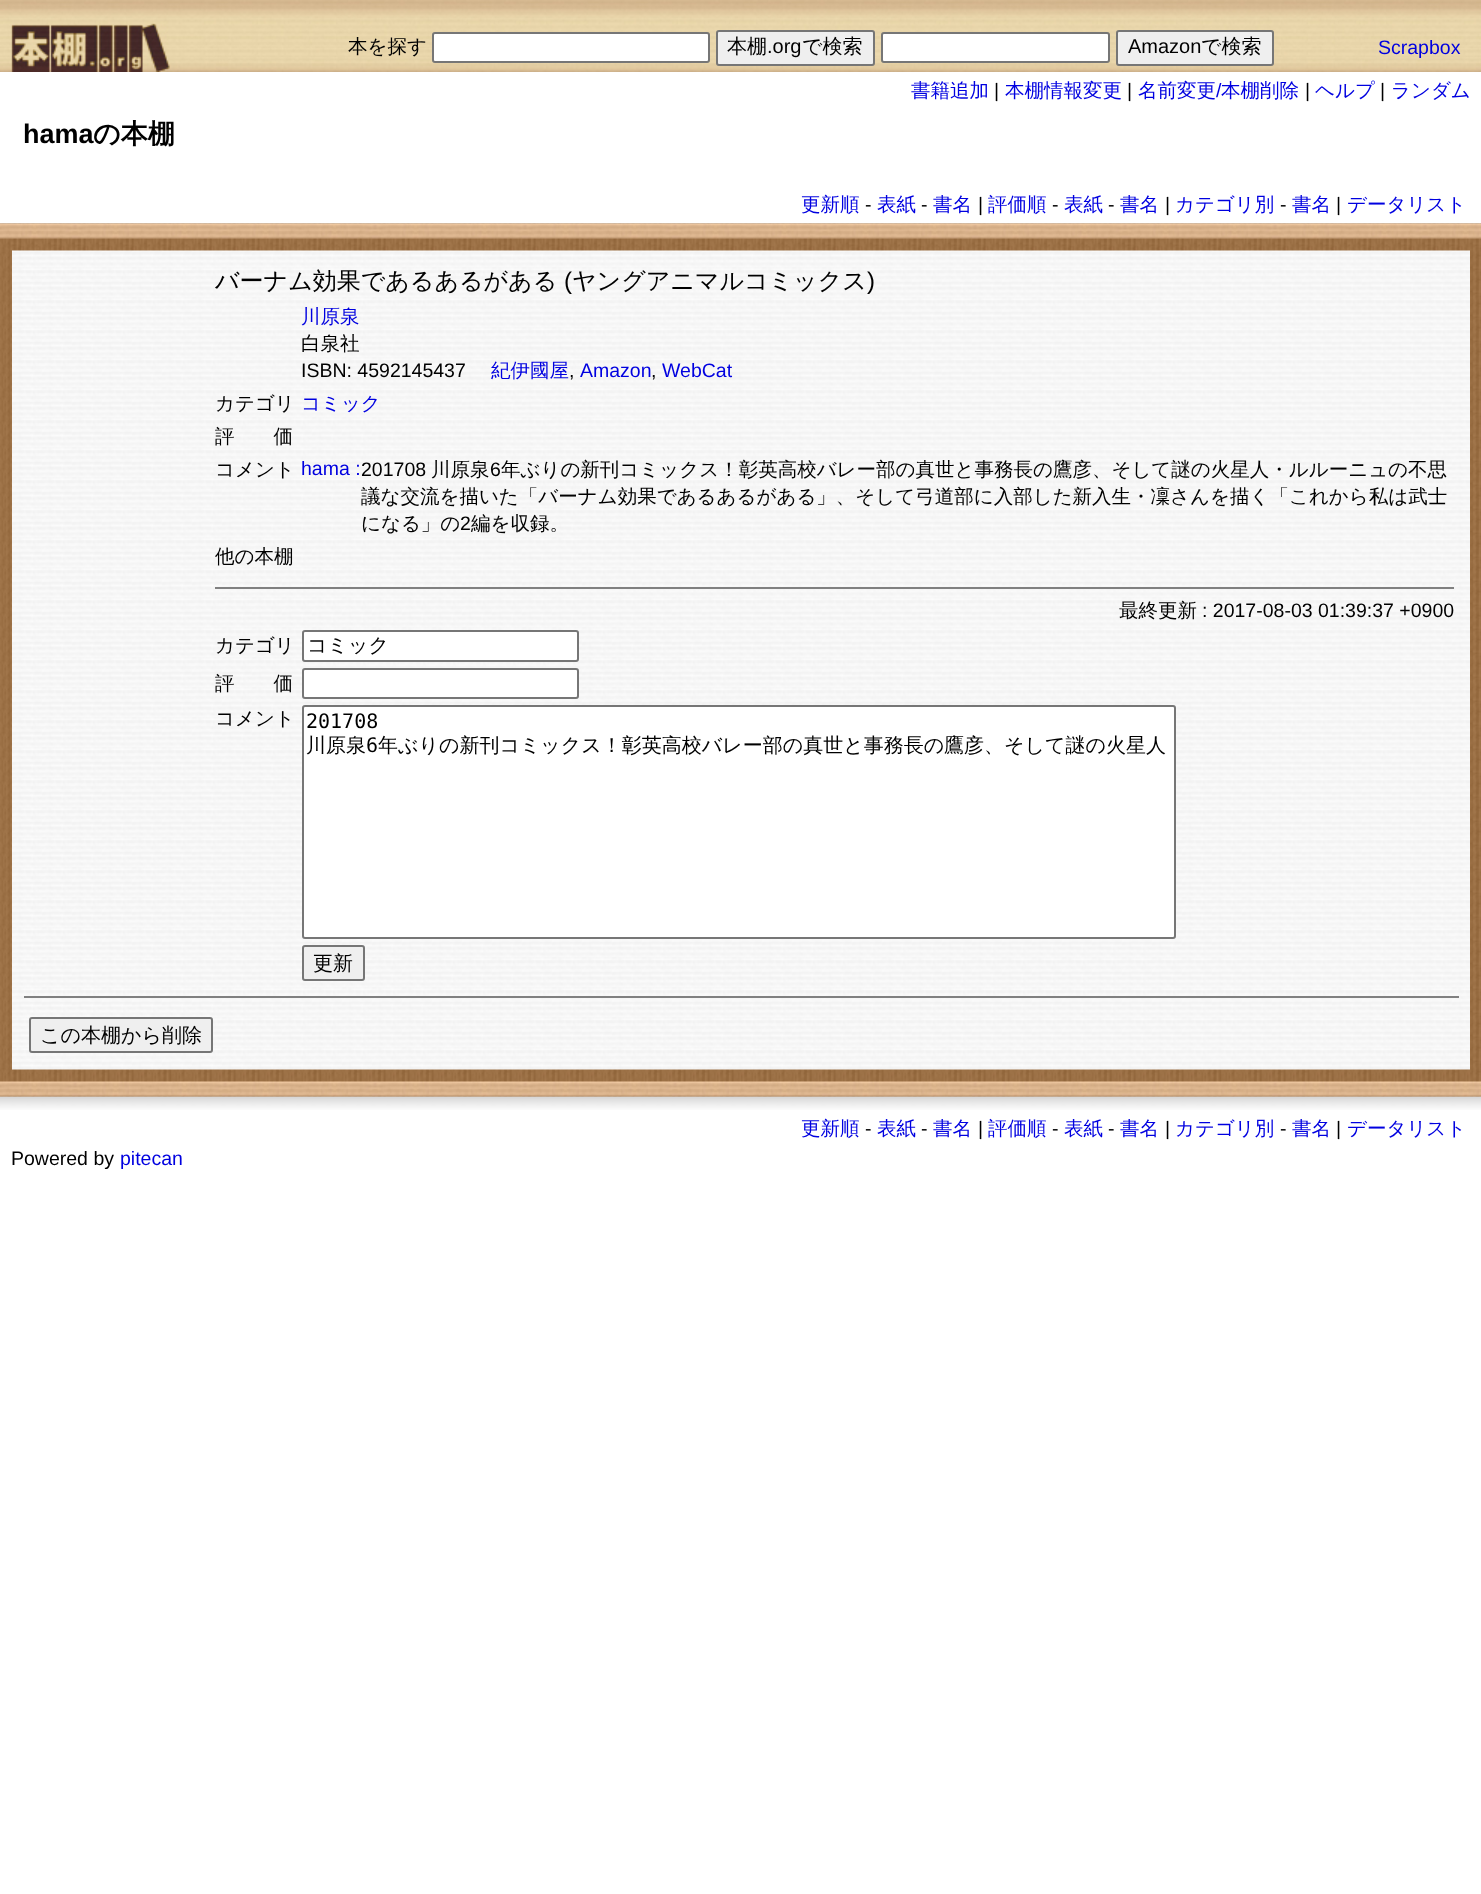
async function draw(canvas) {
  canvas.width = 1481
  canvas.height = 1894
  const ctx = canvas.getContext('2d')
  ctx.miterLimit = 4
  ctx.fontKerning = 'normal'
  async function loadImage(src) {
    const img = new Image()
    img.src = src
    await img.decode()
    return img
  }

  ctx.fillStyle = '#fff'
  ctx.fillRect(0, 0, 1481, 1894)
  ctx.drawImage(await loadImage('image0.png'), 0, 0, 1481, 72)
  ctx.font = '500 19.5px WenQuanYi Zen Hei'
  ctx.fillStyle = '#000'
  ctx.fillText('本を探す', 348, 53)
  ctx.fillStyle = '#fff'
  ctx.beginPath()
  ctx.roundRect(433, 33, 276, 29, 2)
  ctx.fill()
  ctx.strokeStyle = '#767676'
  ctx.lineWidth = 2
  ctx.stroke()
  ctx.fillStyle = '#efefef'
  ctx.beginPath()
  ctx.roundRect(717, 31, 157, 34, 2)
  ctx.fill()
  ctx.stroke()
  ctx.font = '500 20px WenQuanYi Zen Hei'
  ctx.fillStyle = '#000'
  ctx.fillText('本棚', 727, 53)
  ctx.font = '20px Liberation Sans'
  ctx.fillText('.org', 767, 53)
  ctx.font = '500 20px WenQuanYi Zen Hei'
  ctx.fillText('で検索', 802, 53)
  ctx.fillStyle = '#fff'
  ctx.beginPath()
  ctx.roundRect(882, 33, 227, 29, 2)
  ctx.fill()
  ctx.stroke()
  ctx.fillStyle = '#efefef'
  ctx.beginPath()
  ctx.roundRect(1117, 31, 156, 34, 2)
  ctx.fill()
  ctx.stroke()
  ctx.font = '20px Liberation Sans'
  ctx.fillStyle = '#000'
  ctx.fillText('Amazon', 1128, 53)
  ctx.font = '500 20px WenQuanYi Zen Hei'
  ctx.fillText('で検索', 1201, 53)
  ctx.font = '19.5px Liberation Sans'
  ctx.fillStyle = '#0000e0'
  ctx.fillText('Scrapbox', 1378, 54)
  ctx.font = '500 19.5px WenQuanYi Zen Hei'
  ctx.fillText('書籍追加', 911, 97)
  ctx.font = '19.5px Liberation Sans'
  ctx.fillStyle = '#000'
  ctx.fillText('|', 994, 97)
  ctx.font = '500 19.5px WenQuanYi Zen Hei'
  ctx.fillStyle = '#0000e0'
  ctx.fillText('本棚情報変更', 1005, 97)
  ctx.font = '19.5px Liberation Sans'
  ctx.fillStyle = '#000'
  ctx.fillText('|', 1127, 97)
  ctx.font = '500 19.5px WenQuanYi Zen Hei'
  ctx.fillStyle = '#0000e0'
  ctx.fillText('名前変更', 1138, 97)
  ctx.font = '19.5px Liberation Sans'
  ctx.fillText('/', 1216, 97)
  ctx.font = '500 19.5px WenQuanYi Zen Hei'
  ctx.fillText('本棚削除', 1221, 97)
  ctx.font = '19.5px Liberation Sans'
  ctx.fillStyle = '#000'
  ctx.fillText('|', 1305, 97)
  ctx.font = '500 19.5px WenQuanYi Zen Hei'
  ctx.fillStyle = '#0000e0'
  ctx.fillText('ヘルプ', 1315, 97)
  ctx.font = '19.5px Liberation Sans'
  ctx.fillStyle = '#000'
  ctx.fillText('|', 1380, 97)
  ctx.font = '500 19.5px WenQuanYi Zen Hei'
  ctx.fillStyle = '#0000e0'
  ctx.fillText('ランダム', 1391, 97)
  ctx.font = 'bold 27px Liberation Sans'
  ctx.fillStyle = '#000'
  ctx.fillText('hama', 23, 143)
  ctx.font = 'bold 27px WenQuanYi Zen Hei'
  ctx.fillText('の本棚', 93, 143)
  ctx.font = '500 19.5px WenQuanYi Zen Hei'
  ctx.fillStyle = '#0000e0'
  ctx.fillText('更新順', 801, 211)
  ctx.font = '19.5px Liberation Sans'
  ctx.fillStyle = '#000'
  ctx.fillText('-', 865, 211)
  ctx.font = '500 19.5px WenQuanYi Zen Hei'
  ctx.fillStyle = '#0000e0'
  ctx.fillText('表紙', 877, 211)
  ctx.font = '19.5px Liberation Sans'
  ctx.fillStyle = '#000'
  ctx.fillText('-', 921, 211)
  ctx.font = '500 19.5px WenQuanYi Zen Hei'
  ctx.fillStyle = '#0000e0'
  ctx.fillText('書名', 933, 211)
  ctx.font = '19.5px Liberation Sans'
  ctx.fillStyle = '#000'
  ctx.fillText('|', 978, 211)
  ctx.font = '500 19.5px WenQuanYi Zen Hei'
  ctx.fillStyle = '#0000e0'
  ctx.fillText('評価順', 988, 211)
  ctx.font = '19.5px Liberation Sans'
  ctx.fillStyle = '#000'
  ctx.fillText('-', 1052, 211)
  ctx.font = '500 19.5px WenQuanYi Zen Hei'
  ctx.fillStyle = '#0000e0'
  ctx.fillText('表紙', 1064, 211)
  ctx.font = '19.5px Liberation Sans'
  ctx.fillStyle = '#000'
  ctx.fillText('-', 1108, 211)
  ctx.font = '500 19.5px WenQuanYi Zen Hei'
  ctx.fillStyle = '#0000e0'
  ctx.fillText('書名', 1120, 211)
  ctx.font = '19.5px Liberation Sans'
  ctx.fillStyle = '#000'
  ctx.fillText('|', 1165, 211)
  ctx.font = '500 19.5px WenQuanYi Zen Hei'
  ctx.fillStyle = '#0000e0'
  ctx.fillText('カテゴリ別', 1175, 211)
  ctx.font = '19.5px Liberation Sans'
  ctx.fillStyle = '#000'
  ctx.fillText('-', 1280, 211)
  ctx.font = '500 19.5px WenQuanYi Zen Hei'
  ctx.fillStyle = '#0000e0'
  ctx.fillText('書名', 1292, 211)
  ctx.font = '19.5px Liberation Sans'
  ctx.fillStyle = '#000'
  ctx.fillText('|', 1336, 211)
  ctx.font = '500 19.5px WenQuanYi Zen Hei'
  ctx.fillStyle = '#0000e0'
  ctx.fillText('データリスト', 1347, 211)
  ctx.drawImage(await loadImage('image5.png'), 0, 1096, 1481, 14)
  ctx.drawImage(await loadImage('image1.png'), 0, 223, 1481, 874)
  ctx.drawImage(await loadImage('image2.png'), 0, 223, 1481, 16)
  ctx.drawImage(await loadImage('image3.png'), 12, 250, 1458, 820)
  ctx.font = '500 24px WenQuanYi Zen Hei'
  ctx.fillStyle = '#000'
  ctx.fillText('バーナム効果であるあるがある', 215, 289)
  ctx.font = '24px Liberation Sans'
  ctx.fillText('(', 564, 289)
  ctx.font = '500 24px WenQuanYi Zen Hei'
  ctx.fillText('ヤングアニマルコミックス', 572, 289)
  ctx.font = '24px Liberation Sans'
  ctx.fillText(')', 867, 289)
  ctx.font = '500 19.5px WenQuanYi Zen Hei'
  ctx.fillStyle = '#0000e0'
  ctx.fillText('川原泉', 301, 323)
  ctx.fillStyle = '#000'
  ctx.fillText('白泉社', 301, 350)
  ctx.font = '19.5px Liberation Sans'
  ctx.fillText('ISBN: 4592145437', 301, 377)
  ctx.font = '500 19.5px WenQuanYi Zen Hei'
  ctx.fillStyle = '#0000e0'
  ctx.fillText('紀伊國屋', 491, 377)
  ctx.font = '19.5px Liberation Sans'
  ctx.fillStyle = '#000'
  ctx.fillText(',', 569, 377)
  ctx.fillStyle = '#0000e0'
  ctx.fillText('Amazon', 580, 377)
  ctx.fillStyle = '#000'
  ctx.fillText(',', 651, 377)
  ctx.fillStyle = '#0000e0'
  ctx.fillText('WebCat', 662, 377)
  ctx.font = '500 19.5px WenQuanYi Zen Hei'
  ctx.fillStyle = '#000'
  ctx.fillText('カテゴリ', 215, 410)
  ctx.fillStyle = '#0000e0'
  ctx.fillText('コミック', 301, 410)
  ctx.fillStyle = '#000'
  ctx.fillText('評　　価', 215, 443)
  ctx.fillText('コメント', 215, 476)
  ctx.font = '19.5px Liberation Sans'
  ctx.fillStyle = '#0000e0'
  ctx.fillText('hama :', 301, 475)
  ctx.fillStyle = '#000'
  ctx.fillText('201708', 361, 476)
  ctx.font = '500 19.5px WenQuanYi Zen Hei'
  ctx.fillText('川原泉', 431, 476)
  ctx.font = '19.5px Liberation Sans'
  ctx.fillText('6', 490, 476)
  ctx.font = '500 19.5px WenQuanYi Zen Hei'
  ctx.fillText('年ぶりの新刊コミックス！彰英高校バレー部の真世と事務長の鷹彦、そして謎の火星人・ルルーニュの不思', 501, 476)
  ctx.fillText('議な交流を描いた「バーナム効果であるあるがある」、そして弓道部に入部した新入生・凜さんを描く「これから私は武士', 361, 503)
  ctx.fillText('になる」の', 361, 530)
  ctx.font = '19.5px Liberation Sans'
  ctx.fillText('2', 460, 530)
  ctx.font = '500 19.5px WenQuanYi Zen Hei'
  ctx.fillText('編を収録。', 471, 530)
  ctx.fillText('他の本棚', 215, 563)
  ctx.fillStyle = '#808080'
  ctx.fillRect(215, 587, 1239, 2)
  ctx.fillStyle = '#000'
  ctx.fillText('最終更新', 1119, 617)
  ctx.font = '19.5px Liberation Sans'
  ctx.fillText(': 2017-08-03 01:39:37 +0900', 1202, 617)
  ctx.font = '500 19.5px WenQuanYi Zen Hei'
  ctx.fillText('カテゴリ', 215, 652)
  ctx.fillStyle = '#fff'
  ctx.beginPath()
  ctx.roundRect(303, 631, 275, 30, 2)
  ctx.fill()
  ctx.stroke()
  ctx.font = '500 20px WenQuanYi Zen Hei'
  ctx.fillStyle = '#000'
  ctx.fillText('コミック', 307, 652)
  ctx.font = '500 19.5px WenQuanYi Zen Hei'
  ctx.fillText('評　　価', 215, 690)
  ctx.fillStyle = '#fff'
  ctx.beginPath()
  ctx.roundRect(303, 669, 275, 29, 2)
  ctx.fill()
  ctx.stroke()
  ctx.fillStyle = '#000'
  ctx.fillText('コメント', 215, 725)
  ctx.fillStyle = '#fff'
  ctx.beginPath()
  ctx.roundRect(303, 706, 872, 232, 2)
  ctx.fill()
  ctx.stroke()
  ctx.font = '20px DejaVu Sans Mono'
  ctx.fillStyle = '#000'
  ctx.fillText('201708', 306, 728)
  ctx.font = '500 20px WenQuanYi Zen Hei'
  ctx.fillText('川原泉', 306, 752)
  ctx.font = '20px DejaVu Sans Mono'
  ctx.fillText('6', 366, 752)
  ctx.font = '500 20px WenQuanYi Zen Hei'
  ctx.fillText('年ぶりの新刊コミックス！彰英高校バレー部の真世と事務長の鷹彦、そして謎の火星人', 378, 752)
  ctx.fillStyle = '#efefef'
  ctx.beginPath()
  ctx.roundRect(303, 946, 61, 34, 2)
  ctx.fill()
  ctx.stroke()
  ctx.fillStyle = '#000'
  ctx.fillText('更新', 313, 970)
  ctx.fillStyle = '#808080'
  ctx.fillRect(24, 996, 1435, 2)
  ctx.fillStyle = '#efefef'
  ctx.beginPath()
  ctx.roundRect(30, 1018, 182, 34, 2)
  ctx.fill()
  ctx.stroke()
  ctx.fillStyle = '#000'
  ctx.fillText('この本棚から削除', 40, 1042)
  ctx.drawImage(await loadImage('image4.png'), 0, 1081, 1481, 16)
  ctx.font = '500 19.5px WenQuanYi Zen Hei'
  ctx.fillStyle = '#0000e0'
  ctx.fillText('更新順', 801, 1135)
  ctx.font = '19.5px Liberation Sans'
  ctx.fillStyle = '#000'
  ctx.fillText('-', 865, 1135)
  ctx.font = '500 19.5px WenQuanYi Zen Hei'
  ctx.fillStyle = '#0000e0'
  ctx.fillText('表紙', 877, 1135)
  ctx.font = '19.5px Liberation Sans'
  ctx.fillStyle = '#000'
  ctx.fillText('-', 921, 1135)
  ctx.font = '500 19.5px WenQuanYi Zen Hei'
  ctx.fillStyle = '#0000e0'
  ctx.fillText('書名', 933, 1135)
  ctx.font = '19.5px Liberation Sans'
  ctx.fillStyle = '#000'
  ctx.fillText('|', 978, 1135)
  ctx.font = '500 19.5px WenQuanYi Zen Hei'
  ctx.fillStyle = '#0000e0'
  ctx.fillText('評価順', 988, 1135)
  ctx.font = '19.5px Liberation Sans'
  ctx.fillStyle = '#000'
  ctx.fillText('-', 1052, 1135)
  ctx.font = '500 19.5px WenQuanYi Zen Hei'
  ctx.fillStyle = '#0000e0'
  ctx.fillText('表紙', 1064, 1135)
  ctx.font = '19.5px Liberation Sans'
  ctx.fillStyle = '#000'
  ctx.fillText('-', 1108, 1135)
  ctx.font = '500 19.5px WenQuanYi Zen Hei'
  ctx.fillStyle = '#0000e0'
  ctx.fillText('書名', 1120, 1135)
  ctx.font = '19.5px Liberation Sans'
  ctx.fillStyle = '#000'
  ctx.fillText('|', 1165, 1135)
  ctx.font = '500 19.5px WenQuanYi Zen Hei'
  ctx.fillStyle = '#0000e0'
  ctx.fillText('カテゴリ別', 1175, 1135)
  ctx.font = '19.5px Liberation Sans'
  ctx.fillStyle = '#000'
  ctx.fillText('-', 1280, 1135)
  ctx.font = '500 19.5px WenQuanYi Zen Hei'
  ctx.fillStyle = '#0000e0'
  ctx.fillText('書名', 1292, 1135)
  ctx.font = '19.5px Liberation Sans'
  ctx.fillStyle = '#000'
  ctx.fillText('|', 1336, 1135)
  ctx.font = '500 19.5px WenQuanYi Zen Hei'
  ctx.fillStyle = '#0000e0'
  ctx.fillText('データリスト', 1347, 1135)
  ctx.font = '19.5px Liberation Sans'
  ctx.fillStyle = '#000'
  ctx.fillText('Powered by', 11, 1165)
  ctx.fillStyle = '#0000e0'
  ctx.fillText('pitecan', 120, 1165)
}

draw(document.querySelector('canvas'))
